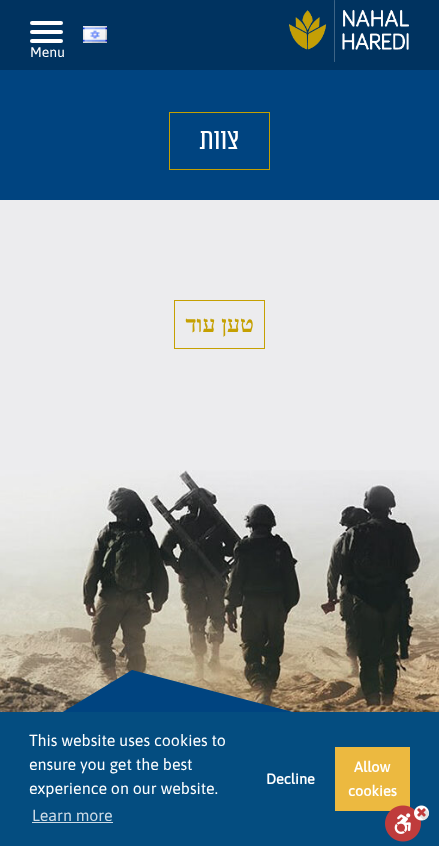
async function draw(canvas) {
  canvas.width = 439
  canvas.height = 846
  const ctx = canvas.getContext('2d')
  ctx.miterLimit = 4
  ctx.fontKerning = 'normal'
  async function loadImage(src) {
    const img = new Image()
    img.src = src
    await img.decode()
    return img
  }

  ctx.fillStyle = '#ececee'
  ctx.fillRect(0, 0, 439, 846)
  ctx.fillStyle = '#003360'
  ctx.fillRect(0, 0, 439, 70)
  ctx.fillStyle = '#fff'
  ctx.beginPath()
  ctx.roundRect(30, 21, 33, 4, 2)
  ctx.fill()
  ctx.beginPath()
  ctx.roundRect(30, 30, 33, 4, 2)
  ctx.fill()
  ctx.beginPath()
  ctx.roundRect(30, 39, 33, 4, 2)
  ctx.fill()
  ctx.drawImage(await loadImage('image0.png'), 83, 26, 24, 17)
  ctx.drawImage(await loadImage('image1.png'), 289, 0, 120, 62)
  ctx.font = '14px Asap'
  ctx.fillText('Menu', 30, 57)
  ctx.fillStyle = '#004480'
  ctx.fillRect(0, 70, 439, 130)
  ctx.strokeStyle = '#c5a001'
  ctx.strokeRect(169.5, 112.5, 100, 57)
  ctx.direction = 'rtl'
  ctx.font = '30px "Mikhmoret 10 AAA"'
  ctx.fillStyle = '#fff'
  ctx.fillText('צוות', 239, 149)
  ctx.strokeRect(174.5, 300.5, 90, 48)
  ctx.font = 'bold 23px Liberation Serif'
  ctx.fillStyle = '#c5a001'
  ctx.fillText('טען עוד', 254, 332)
  ctx.drawImage(await loadImage('image2.png'), 0, 470, 439, 242)
  ctx.fillStyle = '#004480'
  ctx.beginPath()
  ctx.moveTo(264, 750)
  ctx.lineTo(0, 750)
  ctx.lineTo(132, 670)
  ctx.closePath()
  ctx.fill()
  ctx.beginPath()
  ctx.moveTo(439, 750)
  ctx.lineTo(132, 750)
  ctx.lineTo(132, 670)
  ctx.closePath()
  ctx.fill()
  ctx.fillStyle = '#044d80'
  ctx.fillRect(0, 712, 439, 134)
  ctx.direction = 'ltr'
  ctx.font = '16px Asap'
  ctx.fillStyle = '#fff'
  ctx.fillText('This website uses cookies to', 29, 746)
  ctx.fillText('ensure you get the best', 29, 770)
  ctx.fillText('experience on our website.', 29, 794)
  ctx.fillStyle = '#cddbe6'
  ctx.fillText('Learn more', 32, 821)
  ctx.fillRect(32, 822, 81, 1)
  ctx.font = 'bold 14.5px Asap'
  ctx.fillStyle = '#fff'
  ctx.fillText('Decline', 266, 784)
  ctx.fillStyle = '#ecb940'
  ctx.fillRect(335, 747, 75, 64)
  ctx.fillStyle = '#fff'
  ctx.fillText('Allow', 354, 772)
  ctx.fillText('cookies', 348, 796)
  ctx.drawImage(await loadImage('image3.png'), 385, 805, 44, 37)
}

draw(document.querySelector('canvas'))
